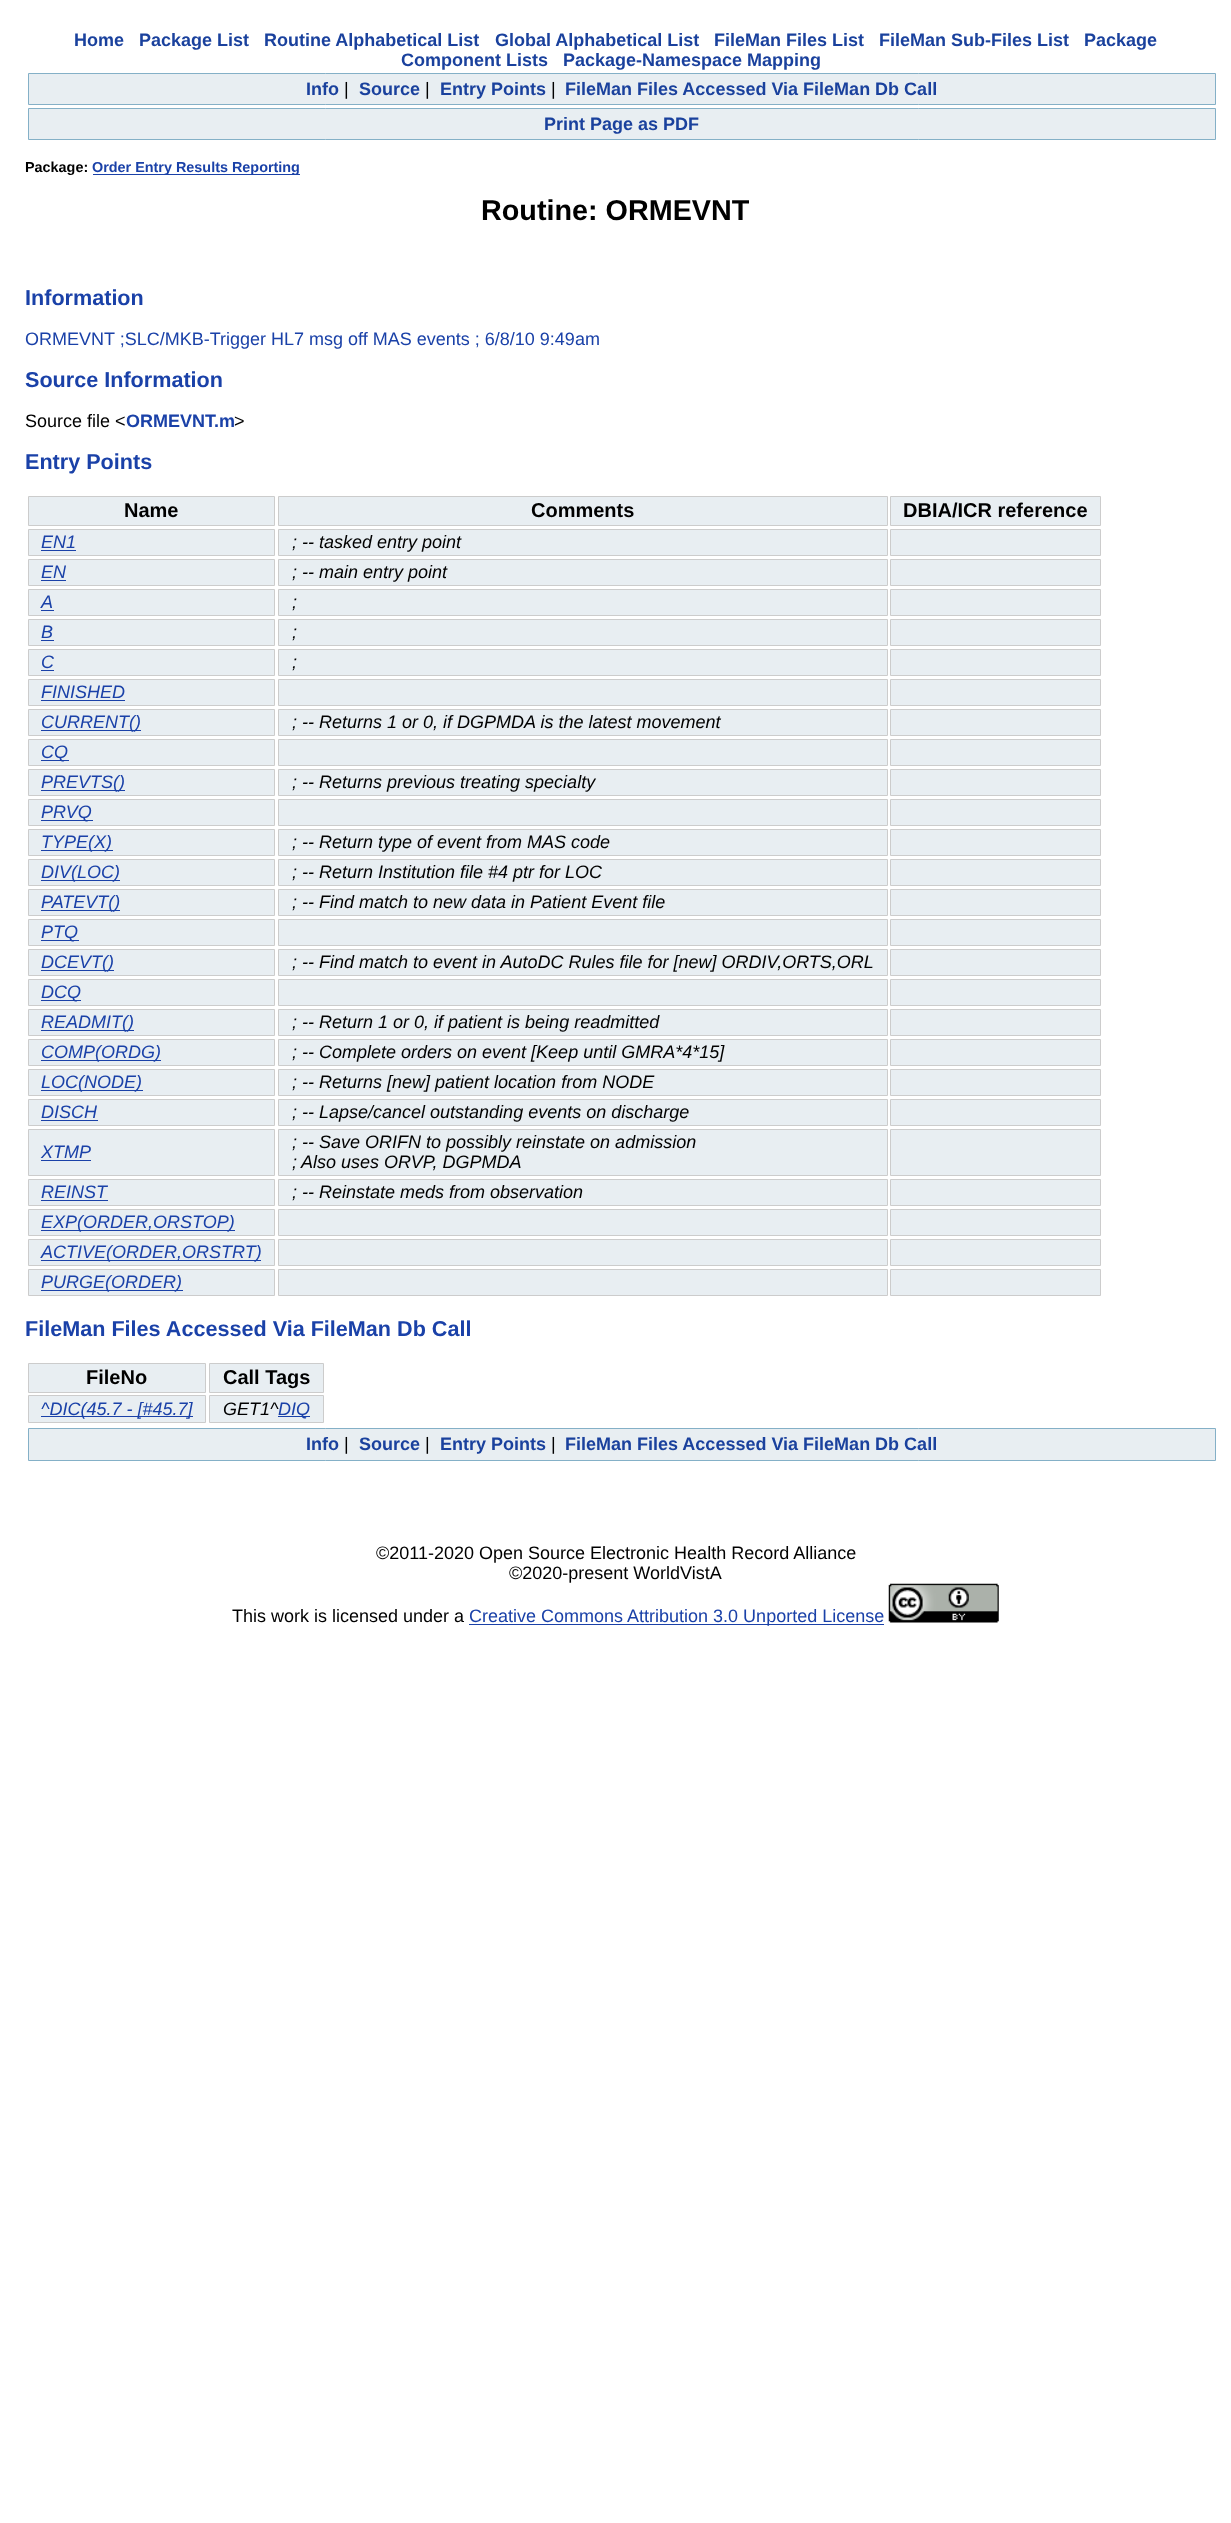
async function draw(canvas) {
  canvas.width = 1231
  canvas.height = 2523
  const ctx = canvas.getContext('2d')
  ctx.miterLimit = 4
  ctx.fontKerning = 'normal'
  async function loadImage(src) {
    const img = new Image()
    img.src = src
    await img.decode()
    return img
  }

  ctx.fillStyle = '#fff'
  ctx.fillRect(0, 0, 1231, 2523)
  ctx.font = 'bold 18px Liberation Sans'
  ctx.fillStyle = '#1a419d'
  ctx.fillText('Home', 74, 46)
  ctx.fillText('Package List', 139, 46)
  ctx.fillText('Routine Alphabetical List', 264, 46)
  ctx.fillText('Global Alphabetical List', 495, 46)
  ctx.fillText('FileMan Files List', 714, 46)
  ctx.fillText('FileMan Sub-Files List', 879, 46)
  ctx.fillText('Package', 1084, 46)
  ctx.fillText('Component Lists', 401, 66)
  ctx.fillText('Package-Namespace Mapping', 563, 66)
  ctx.fillStyle = '#e8eef2'
  ctx.beginPath()
  ctx.rect(28.5, 73.5, 1187, 31)
  ctx.fill()
  ctx.strokeStyle = '#84b0c7'
  ctx.stroke()
  ctx.fillStyle = '#1a419d'
  ctx.fillText('Info', 306, 95)
  ctx.font = '18px Liberation Sans'
  ctx.fillStyle = '#000'
  ctx.fillText('|', 344, 95)
  ctx.font = 'bold 18px Liberation Sans'
  ctx.fillStyle = '#1a419d'
  ctx.fillText('Source', 359, 95)
  ctx.font = '18px Liberation Sans'
  ctx.fillStyle = '#000'
  ctx.fillText('|', 425, 95)
  ctx.font = 'bold 18px Liberation Sans'
  ctx.fillStyle = '#1a419d'
  ctx.fillText('Entry Points', 440, 95)
  ctx.font = '18px Liberation Sans'
  ctx.fillStyle = '#000'
  ctx.fillText('|', 551, 95)
  ctx.font = 'bold 18px Liberation Sans'
  ctx.fillStyle = '#1a419d'
  ctx.fillText('FileMan Files Accessed Via FileMan Db Call', 565, 95)
  ctx.fillStyle = '#e8eef2'
  ctx.beginPath()
  ctx.rect(28.5, 108.5, 1187, 31)
  ctx.fill()
  ctx.stroke()
  ctx.fillStyle = '#1a419d'
  ctx.fillText('Print Page as PDF', 544, 130)
  ctx.font = 'bold 14.4px Liberation Sans'
  ctx.fillStyle = '#000'
  ctx.fillText('Package:', 25, 172)
  ctx.fillStyle = '#1a41a8'
  ctx.fillRect(93, 174, 207, 1)
  ctx.fillText('Order Entry Results Reporting', 92, 172)
  ctx.font = 'bold 28.75px Liberation Sans'
  ctx.fillStyle = '#000'
  ctx.fillText('Routine: ORMEVNT', 481, 220)
  ctx.font = 'bold 21.6px Liberation Sans'
  ctx.fillStyle = '#1a41a8'
  ctx.fillText('Information', 25, 305)
  ctx.font = '18px Liberation Sans'
  ctx.fillText('ORMEVNT ;SLC/MKB-Trigger HL7 msg off MAS events ; 6/8/10 9:49am', 25, 345)
  ctx.font = 'bold 21.6px Liberation Sans'
  ctx.fillText('Source Information', 25, 387)
  ctx.font = '18px Liberation Sans'
  ctx.fillStyle = '#000'
  ctx.fillText('Source file <', 25, 427)
  ctx.font = 'bold 18px Liberation Sans'
  ctx.fillStyle = '#1a41a8'
  ctx.fillText('ORMEVNT.m', 126, 427)
  ctx.font = '18px Liberation Sans'
  ctx.fillStyle = '#000'
  ctx.fillText('>', 234, 427)
  ctx.font = 'bold 21.6px Liberation Sans'
  ctx.fillStyle = '#1a41a8'
  ctx.fillText('Entry Points', 25, 469)
  ctx.fillStyle = '#e8eef2'
  ctx.beginPath()
  ctx.rect(28.5, 496.5, 246, 29)
  ctx.fill()
  ctx.strokeStyle = '#ccc'
  ctx.stroke()
  ctx.font = 'bold 20px Liberation Sans'
  ctx.fillStyle = '#000'
  ctx.fillText('Name', 124, 517)
  ctx.fillStyle = '#e8eef2'
  ctx.beginPath()
  ctx.rect(278.5, 496.5, 609, 29)
  ctx.fill()
  ctx.stroke()
  ctx.fillStyle = '#000'
  ctx.fillText('Comments', 531, 517)
  ctx.fillStyle = '#e8eef2'
  ctx.beginPath()
  ctx.rect(890.5, 496.5, 210, 29)
  ctx.fill()
  ctx.stroke()
  ctx.fillStyle = '#000'
  ctx.fillText('DBIA/ICR reference', 903, 517)
  ctx.fillStyle = '#e8eef2'
  ctx.beginPath()
  ctx.rect(28.5, 529.5, 246, 26)
  ctx.fill()
  ctx.stroke()
  ctx.font = 'italic 18px Liberation Sans'
  ctx.fillStyle = '#1a41a8'
  ctx.fillText('EN1', 41, 548)
  ctx.fillRect(41, 550, 35, 1)
  ctx.fillStyle = '#e8eef2'
  ctx.beginPath()
  ctx.rect(278.5, 529.5, 609, 26)
  ctx.fill()
  ctx.stroke()
  ctx.fillStyle = '#000'
  ctx.fillText('; -- tasked entry point', 292, 548)
  ctx.fillStyle = '#e8eef2'
  ctx.beginPath()
  ctx.rect(890.5, 529.5, 210, 26)
  ctx.fill()
  ctx.stroke()
  ctx.beginPath()
  ctx.rect(28.5, 559.5, 246, 26)
  ctx.fill()
  ctx.stroke()
  ctx.fillStyle = '#1a41a8'
  ctx.fillText('EN', 41, 578)
  ctx.fillRect(41, 580, 25, 1)
  ctx.fillStyle = '#e8eef2'
  ctx.beginPath()
  ctx.rect(278.5, 559.5, 609, 26)
  ctx.fill()
  ctx.stroke()
  ctx.fillStyle = '#000'
  ctx.fillText('; -- main entry point', 292, 578)
  ctx.fillStyle = '#e8eef2'
  ctx.beginPath()
  ctx.rect(890.5, 559.5, 210, 26)
  ctx.fill()
  ctx.stroke()
  ctx.beginPath()
  ctx.rect(28.5, 589.5, 246, 26)
  ctx.fill()
  ctx.stroke()
  ctx.fillStyle = '#1a41a8'
  ctx.fillText('A', 41, 608)
  ctx.fillRect(41, 610, 13, 1)
  ctx.fillStyle = '#e8eef2'
  ctx.beginPath()
  ctx.rect(278.5, 589.5, 609, 26)
  ctx.fill()
  ctx.stroke()
  ctx.fillStyle = '#000'
  ctx.fillText(';', 292, 608)
  ctx.fillStyle = '#e8eef2'
  ctx.beginPath()
  ctx.rect(890.5, 589.5, 210, 26)
  ctx.fill()
  ctx.stroke()
  ctx.beginPath()
  ctx.rect(28.5, 619.5, 246, 26)
  ctx.fill()
  ctx.stroke()
  ctx.fillStyle = '#1a41a8'
  ctx.fillText('B', 41, 638)
  ctx.fillRect(41, 640, 13, 1)
  ctx.fillStyle = '#e8eef2'
  ctx.beginPath()
  ctx.rect(278.5, 619.5, 609, 26)
  ctx.fill()
  ctx.stroke()
  ctx.fillStyle = '#000'
  ctx.fillText(';', 292, 638)
  ctx.fillStyle = '#e8eef2'
  ctx.beginPath()
  ctx.rect(890.5, 619.5, 210, 26)
  ctx.fill()
  ctx.stroke()
  ctx.beginPath()
  ctx.rect(28.5, 649.5, 246, 26)
  ctx.fill()
  ctx.stroke()
  ctx.fillStyle = '#1a41a8'
  ctx.fillText('C', 41, 668)
  ctx.fillRect(41, 670, 13, 1)
  ctx.fillStyle = '#e8eef2'
  ctx.beginPath()
  ctx.rect(278.5, 649.5, 609, 26)
  ctx.fill()
  ctx.stroke()
  ctx.fillStyle = '#000'
  ctx.fillText(';', 292, 668)
  ctx.fillStyle = '#e8eef2'
  ctx.beginPath()
  ctx.rect(890.5, 649.5, 210, 26)
  ctx.fill()
  ctx.stroke()
  ctx.beginPath()
  ctx.rect(28.5, 679.5, 246, 26)
  ctx.fill()
  ctx.stroke()
  ctx.fillStyle = '#1a41a8'
  ctx.fillText('FINISHED', 41, 698)
  ctx.fillRect(41, 700, 84, 1)
  ctx.fillStyle = '#e8eef2'
  ctx.beginPath()
  ctx.rect(278.5, 679.5, 609, 26)
  ctx.fill()
  ctx.stroke()
  ctx.beginPath()
  ctx.rect(890.5, 679.5, 210, 26)
  ctx.fill()
  ctx.stroke()
  ctx.beginPath()
  ctx.rect(28.5, 709.5, 246, 26)
  ctx.fill()
  ctx.stroke()
  ctx.fillStyle = '#1a41a8'
  ctx.fillRect(41, 730, 100, 1)
  ctx.fillText('CURRENT()', 41, 728)
  ctx.fillStyle = '#e8eef2'
  ctx.beginPath()
  ctx.rect(278.5, 709.5, 609, 26)
  ctx.fill()
  ctx.stroke()
  ctx.fillStyle = '#000'
  ctx.fillText('; -- Returns 1 or 0, if DGPMDA is the latest movement', 292, 728)
  ctx.fillStyle = '#e8eef2'
  ctx.beginPath()
  ctx.rect(890.5, 709.5, 210, 26)
  ctx.fill()
  ctx.stroke()
  ctx.beginPath()
  ctx.rect(28.5, 739.5, 246, 26)
  ctx.fill()
  ctx.stroke()
  ctx.fillStyle = '#1a41a8'
  ctx.fillRect(41, 760, 28, 1)
  ctx.fillText('CQ', 41, 758)
  ctx.fillStyle = '#e8eef2'
  ctx.beginPath()
  ctx.rect(278.5, 739.5, 609, 26)
  ctx.fill()
  ctx.stroke()
  ctx.beginPath()
  ctx.rect(890.5, 739.5, 210, 26)
  ctx.fill()
  ctx.stroke()
  ctx.beginPath()
  ctx.rect(28.5, 769.5, 246, 26)
  ctx.fill()
  ctx.stroke()
  ctx.fillStyle = '#1a41a8'
  ctx.fillRect(41, 790, 84, 1)
  ctx.fillText('PREVTS()', 41, 788)
  ctx.fillStyle = '#e8eef2'
  ctx.beginPath()
  ctx.rect(278.5, 769.5, 609, 26)
  ctx.fill()
  ctx.stroke()
  ctx.fillStyle = '#000'
  ctx.fillText('; -- Returns previous treating specialty', 292, 788)
  ctx.fillStyle = '#e8eef2'
  ctx.beginPath()
  ctx.rect(890.5, 769.5, 210, 26)
  ctx.fill()
  ctx.stroke()
  ctx.beginPath()
  ctx.rect(28.5, 799.5, 246, 26)
  ctx.fill()
  ctx.stroke()
  ctx.fillStyle = '#1a41a8'
  ctx.fillRect(41, 820, 52, 1)
  ctx.fillText('PRVQ', 41, 818)
  ctx.fillStyle = '#e8eef2'
  ctx.beginPath()
  ctx.rect(278.5, 799.5, 609, 26)
  ctx.fill()
  ctx.stroke()
  ctx.beginPath()
  ctx.rect(890.5, 799.5, 210, 26)
  ctx.fill()
  ctx.stroke()
  ctx.beginPath()
  ctx.rect(28.5, 829.5, 246, 26)
  ctx.fill()
  ctx.stroke()
  ctx.fillStyle = '#1a41a8'
  ctx.fillRect(41, 850, 72, 1)
  ctx.fillText('TYPE(X)', 41, 848)
  ctx.fillStyle = '#e8eef2'
  ctx.beginPath()
  ctx.rect(278.5, 829.5, 609, 26)
  ctx.fill()
  ctx.stroke()
  ctx.fillStyle = '#000'
  ctx.fillText('; -- Return type of event from MAS code', 292, 848)
  ctx.fillStyle = '#e8eef2'
  ctx.beginPath()
  ctx.rect(890.5, 829.5, 210, 26)
  ctx.fill()
  ctx.stroke()
  ctx.beginPath()
  ctx.rect(28.5, 859.5, 246, 26)
  ctx.fill()
  ctx.stroke()
  ctx.fillStyle = '#1a41a8'
  ctx.fillRect(41, 880, 79, 1)
  ctx.fillText('DIV(LOC)', 41, 878)
  ctx.fillStyle = '#e8eef2'
  ctx.beginPath()
  ctx.rect(278.5, 859.5, 609, 26)
  ctx.fill()
  ctx.stroke()
  ctx.fillStyle = '#000'
  ctx.fillText('; -- Return Institution file #4 ptr for LOC', 292, 878)
  ctx.fillStyle = '#e8eef2'
  ctx.beginPath()
  ctx.rect(890.5, 859.5, 210, 26)
  ctx.fill()
  ctx.stroke()
  ctx.beginPath()
  ctx.rect(28.5, 889.5, 246, 26)
  ctx.fill()
  ctx.stroke()
  ctx.fillStyle = '#1a41a8'
  ctx.fillRect(41, 910, 79, 1)
  ctx.fillText('PATEVT()', 41, 908)
  ctx.fillStyle = '#e8eef2'
  ctx.beginPath()
  ctx.rect(278.5, 889.5, 609, 26)
  ctx.fill()
  ctx.stroke()
  ctx.fillStyle = '#000'
  ctx.fillText('; -- Find match to new data in Patient Event file', 292, 908)
  ctx.fillStyle = '#e8eef2'
  ctx.beginPath()
  ctx.rect(890.5, 889.5, 210, 26)
  ctx.fill()
  ctx.stroke()
  ctx.beginPath()
  ctx.rect(28.5, 919.5, 246, 26)
  ctx.fill()
  ctx.stroke()
  ctx.fillStyle = '#1a41a8'
  ctx.fillRect(41, 940, 38, 1)
  ctx.fillText('PTQ', 41, 938)
  ctx.fillStyle = '#e8eef2'
  ctx.beginPath()
  ctx.rect(278.5, 919.5, 609, 26)
  ctx.fill()
  ctx.stroke()
  ctx.beginPath()
  ctx.rect(890.5, 919.5, 210, 26)
  ctx.fill()
  ctx.stroke()
  ctx.beginPath()
  ctx.rect(28.5, 949.5, 246, 26)
  ctx.fill()
  ctx.stroke()
  ctx.fillStyle = '#1a41a8'
  ctx.fillRect(41, 970, 73, 1)
  ctx.fillText('DCEVT()', 41, 968)
  ctx.fillStyle = '#e8eef2'
  ctx.beginPath()
  ctx.rect(278.5, 949.5, 609, 26)
  ctx.fill()
  ctx.stroke()
  ctx.fillStyle = '#000'
  ctx.fillText('; -- Find match to event in AutoDC Rules file for [new] ORDIV,ORTS,ORL', 292, 968)
  ctx.fillStyle = '#e8eef2'
  ctx.beginPath()
  ctx.rect(890.5, 949.5, 210, 26)
  ctx.fill()
  ctx.stroke()
  ctx.beginPath()
  ctx.rect(28.5, 979.5, 246, 26)
  ctx.fill()
  ctx.stroke()
  ctx.fillStyle = '#1a41a8'
  ctx.fillRect(41, 1000, 40, 1)
  ctx.fillText('DCQ', 41, 998)
  ctx.fillStyle = '#e8eef2'
  ctx.beginPath()
  ctx.rect(278.5, 979.5, 609, 26)
  ctx.fill()
  ctx.stroke()
  ctx.beginPath()
  ctx.rect(890.5, 979.5, 210, 26)
  ctx.fill()
  ctx.stroke()
  ctx.beginPath()
  ctx.rect(28.5, 1009.5, 246, 26)
  ctx.fill()
  ctx.stroke()
  ctx.fillStyle = '#1a41a8'
  ctx.fillRect(41, 1030, 93, 1)
  ctx.fillText('READMIT()', 41, 1028)
  ctx.fillStyle = '#e8eef2'
  ctx.beginPath()
  ctx.rect(278.5, 1009.5, 609, 26)
  ctx.fill()
  ctx.stroke()
  ctx.fillStyle = '#000'
  ctx.fillText('; -- Return 1 or 0, if patient is being readmitted', 292, 1028)
  ctx.fillStyle = '#e8eef2'
  ctx.beginPath()
  ctx.rect(890.5, 1009.5, 210, 26)
  ctx.fill()
  ctx.stroke()
  ctx.beginPath()
  ctx.rect(28.5, 1039.5, 246, 26)
  ctx.fill()
  ctx.stroke()
  ctx.fillStyle = '#1a41a8'
  ctx.fillRect(41, 1060, 120, 1)
  ctx.fillText('COMP(ORDG)', 41, 1058)
  ctx.fillStyle = '#e8eef2'
  ctx.beginPath()
  ctx.rect(278.5, 1039.5, 609, 26)
  ctx.fill()
  ctx.stroke()
  ctx.fillStyle = '#000'
  ctx.fillText('; -- Complete orders on event [Keep until GMRA*4*15]', 292, 1058)
  ctx.fillStyle = '#e8eef2'
  ctx.beginPath()
  ctx.rect(890.5, 1039.5, 210, 26)
  ctx.fill()
  ctx.stroke()
  ctx.beginPath()
  ctx.rect(28.5, 1069.5, 246, 26)
  ctx.fill()
  ctx.stroke()
  ctx.fillStyle = '#1a41a8'
  ctx.fillRect(41, 1090, 102, 1)
  ctx.fillText('LOC(NODE)', 41, 1088)
  ctx.fillStyle = '#e8eef2'
  ctx.beginPath()
  ctx.rect(278.5, 1069.5, 609, 26)
  ctx.fill()
  ctx.stroke()
  ctx.fillStyle = '#000'
  ctx.fillText('; -- Returns [new] patient location from NODE', 292, 1088)
  ctx.fillStyle = '#e8eef2'
  ctx.beginPath()
  ctx.rect(890.5, 1069.5, 210, 26)
  ctx.fill()
  ctx.stroke()
  ctx.beginPath()
  ctx.rect(28.5, 1099.5, 246, 26)
  ctx.fill()
  ctx.stroke()
  ctx.fillStyle = '#1a41a8'
  ctx.fillText('DISCH', 41, 1118)
  ctx.fillRect(41, 1120, 57, 1)
  ctx.fillStyle = '#e8eef2'
  ctx.beginPath()
  ctx.rect(278.5, 1099.5, 609, 26)
  ctx.fill()
  ctx.stroke()
  ctx.fillStyle = '#000'
  ctx.fillText('; -- Lapse/cancel outstanding events on discharge', 292, 1118)
  ctx.fillStyle = '#e8eef2'
  ctx.beginPath()
  ctx.rect(890.5, 1099.5, 210, 26)
  ctx.fill()
  ctx.stroke()
  ctx.beginPath()
  ctx.rect(28.5, 1129.5, 246, 46)
  ctx.fill()
  ctx.stroke()
  ctx.fillStyle = '#1a41a8'
  ctx.fillText('XTMP', 41, 1158)
  ctx.fillRect(41, 1160, 50, 1)
  ctx.fillStyle = '#e8eef2'
  ctx.beginPath()
  ctx.rect(278.5, 1129.5, 609, 46)
  ctx.fill()
  ctx.stroke()
  ctx.fillStyle = '#000'
  ctx.fillText('; -- Save ORIFN to possibly reinstate on admission', 292, 1148)
  ctx.fillText(';', 292, 1168)
  ctx.fillText('Also uses ORVP, DGPMDA', 301, 1168)
  ctx.fillStyle = '#e8eef2'
  ctx.beginPath()
  ctx.rect(890.5, 1129.5, 210, 46)
  ctx.fill()
  ctx.stroke()
  ctx.beginPath()
  ctx.rect(28.5, 1179.5, 246, 26)
  ctx.fill()
  ctx.stroke()
  ctx.fillStyle = '#1a41a8'
  ctx.fillText('REINST', 41, 1198)
  ctx.fillRect(41, 1200, 67, 1)
  ctx.fillStyle = '#e8eef2'
  ctx.beginPath()
  ctx.rect(278.5, 1179.5, 609, 26)
  ctx.fill()
  ctx.stroke()
  ctx.fillStyle = '#000'
  ctx.fillText('; -- Reinstate meds from observation', 292, 1198)
  ctx.fillStyle = '#e8eef2'
  ctx.beginPath()
  ctx.rect(890.5, 1179.5, 210, 26)
  ctx.fill()
  ctx.stroke()
  ctx.beginPath()
  ctx.rect(28.5, 1209.5, 246, 26)
  ctx.fill()
  ctx.stroke()
  ctx.fillStyle = '#1a41a8'
  ctx.fillRect(41, 1230, 194, 1)
  ctx.fillText('EXP(ORDER,ORSTOP)', 41, 1228)
  ctx.fillStyle = '#e8eef2'
  ctx.beginPath()
  ctx.rect(278.5, 1209.5, 609, 26)
  ctx.fill()
  ctx.stroke()
  ctx.beginPath()
  ctx.rect(890.5, 1209.5, 210, 26)
  ctx.fill()
  ctx.stroke()
  ctx.beginPath()
  ctx.rect(28.5, 1239.5, 246, 26)
  ctx.fill()
  ctx.stroke()
  ctx.fillStyle = '#1a41a8'
  ctx.fillRect(41, 1260, 220, 1)
  ctx.fillText('ACTIVE(ORDER,ORSTRT)', 41, 1258)
  ctx.fillStyle = '#e8eef2'
  ctx.beginPath()
  ctx.rect(278.5, 1239.5, 609, 26)
  ctx.fill()
  ctx.stroke()
  ctx.beginPath()
  ctx.rect(890.5, 1239.5, 210, 26)
  ctx.fill()
  ctx.stroke()
  ctx.beginPath()
  ctx.rect(28.5, 1269.5, 246, 26)
  ctx.fill()
  ctx.stroke()
  ctx.fillStyle = '#1a41a8'
  ctx.fillRect(41, 1290, 142, 1)
  ctx.fillText('PURGE(ORDER)', 41, 1288)
  ctx.fillStyle = '#e8eef2'
  ctx.beginPath()
  ctx.rect(278.5, 1269.5, 609, 26)
  ctx.fill()
  ctx.stroke()
  ctx.beginPath()
  ctx.rect(890.5, 1269.5, 210, 26)
  ctx.fill()
  ctx.stroke()
  ctx.font = 'bold 21.6px Liberation Sans'
  ctx.fillStyle = '#1a41a8'
  ctx.fillText('FileMan Files Accessed Via FileMan Db Call', 25, 1336)
  ctx.fillStyle = '#e8eef2'
  ctx.beginPath()
  ctx.rect(28.5, 1363.5, 177, 29)
  ctx.fill()
  ctx.stroke()
  ctx.font = 'bold 20px Liberation Sans'
  ctx.fillStyle = '#000'
  ctx.fillText('FileNo', 86, 1384)
  ctx.fillStyle = '#e8eef2'
  ctx.beginPath()
  ctx.rect(209.5, 1363.5, 114, 29)
  ctx.fill()
  ctx.stroke()
  ctx.fillStyle = '#000'
  ctx.fillText('Call Tags', 223, 1384)
  ctx.fillStyle = '#e8eef2'
  ctx.beginPath()
  ctx.rect(28.5, 1395.5, 177, 27)
  ctx.fill()
  ctx.stroke()
  ctx.fillStyle = '#1a41a8'
  ctx.fillRect(41, 1416, 152, 1)
  ctx.font = 'italic 18px Liberation Sans'
  ctx.fillText('^DIC(45.7 - [#45.7]', 41, 1415)
  ctx.fillStyle = '#e8eef2'
  ctx.beginPath()
  ctx.rect(209.5, 1395.5, 114, 27)
  ctx.fill()
  ctx.stroke()
  ctx.fillStyle = '#000'
  ctx.fillText('GET1^', 223, 1415)
  ctx.fillStyle = '#1a41a8'
  ctx.fillRect(278, 1416, 32, 1)
  ctx.fillText('DIQ', 278, 1415)
  ctx.fillStyle = '#e8eef2'
  ctx.beginPath()
  ctx.rect(28.5, 1428.5, 1187, 32)
  ctx.fill()
  ctx.strokeStyle = '#84b0c7'
  ctx.stroke()
  ctx.font = 'bold 18px Liberation Sans'
  ctx.fillStyle = '#1a419d'
  ctx.fillText('Info', 306, 1450)
  ctx.font = '18px Liberation Sans'
  ctx.fillStyle = '#000'
  ctx.fillText('|', 344, 1450)
  ctx.font = 'bold 18px Liberation Sans'
  ctx.fillStyle = '#1a419d'
  ctx.fillText('Source', 359, 1450)
  ctx.font = '18px Liberation Sans'
  ctx.fillStyle = '#000'
  ctx.fillText('|', 425, 1450)
  ctx.font = 'bold 18px Liberation Sans'
  ctx.fillStyle = '#1a419d'
  ctx.fillText('Entry Points', 440, 1450)
  ctx.font = '18px Liberation Sans'
  ctx.fillStyle = '#000'
  ctx.fillText('|', 551, 1450)
  ctx.font = 'bold 18px Liberation Sans'
  ctx.fillStyle = '#1a419d'
  ctx.fillText('FileMan Files Accessed Via FileMan Db Call', 565, 1450)
  ctx.font = '18px Liberation Sans'
  ctx.fillStyle = '#000'
  ctx.fillText('©2011-2020 Open Source Electronic Health Record Alliance', 376, 1559)
  ctx.fillText('©2020-present WorldVistA', 509, 1579)
  ctx.fillText('This work is licensed under a', 232, 1622)
  ctx.fillStyle = '#1a41a8'
  ctx.fillRect(469, 1624, 415, 1)
  ctx.fillText('Creative Commons Attribution 3.0 Unported License', 469, 1622)
  ctx.drawImage(await loadImage('image0.png'), 888, 1583, 111, 40)
}

draw(document.querySelector('canvas'))
